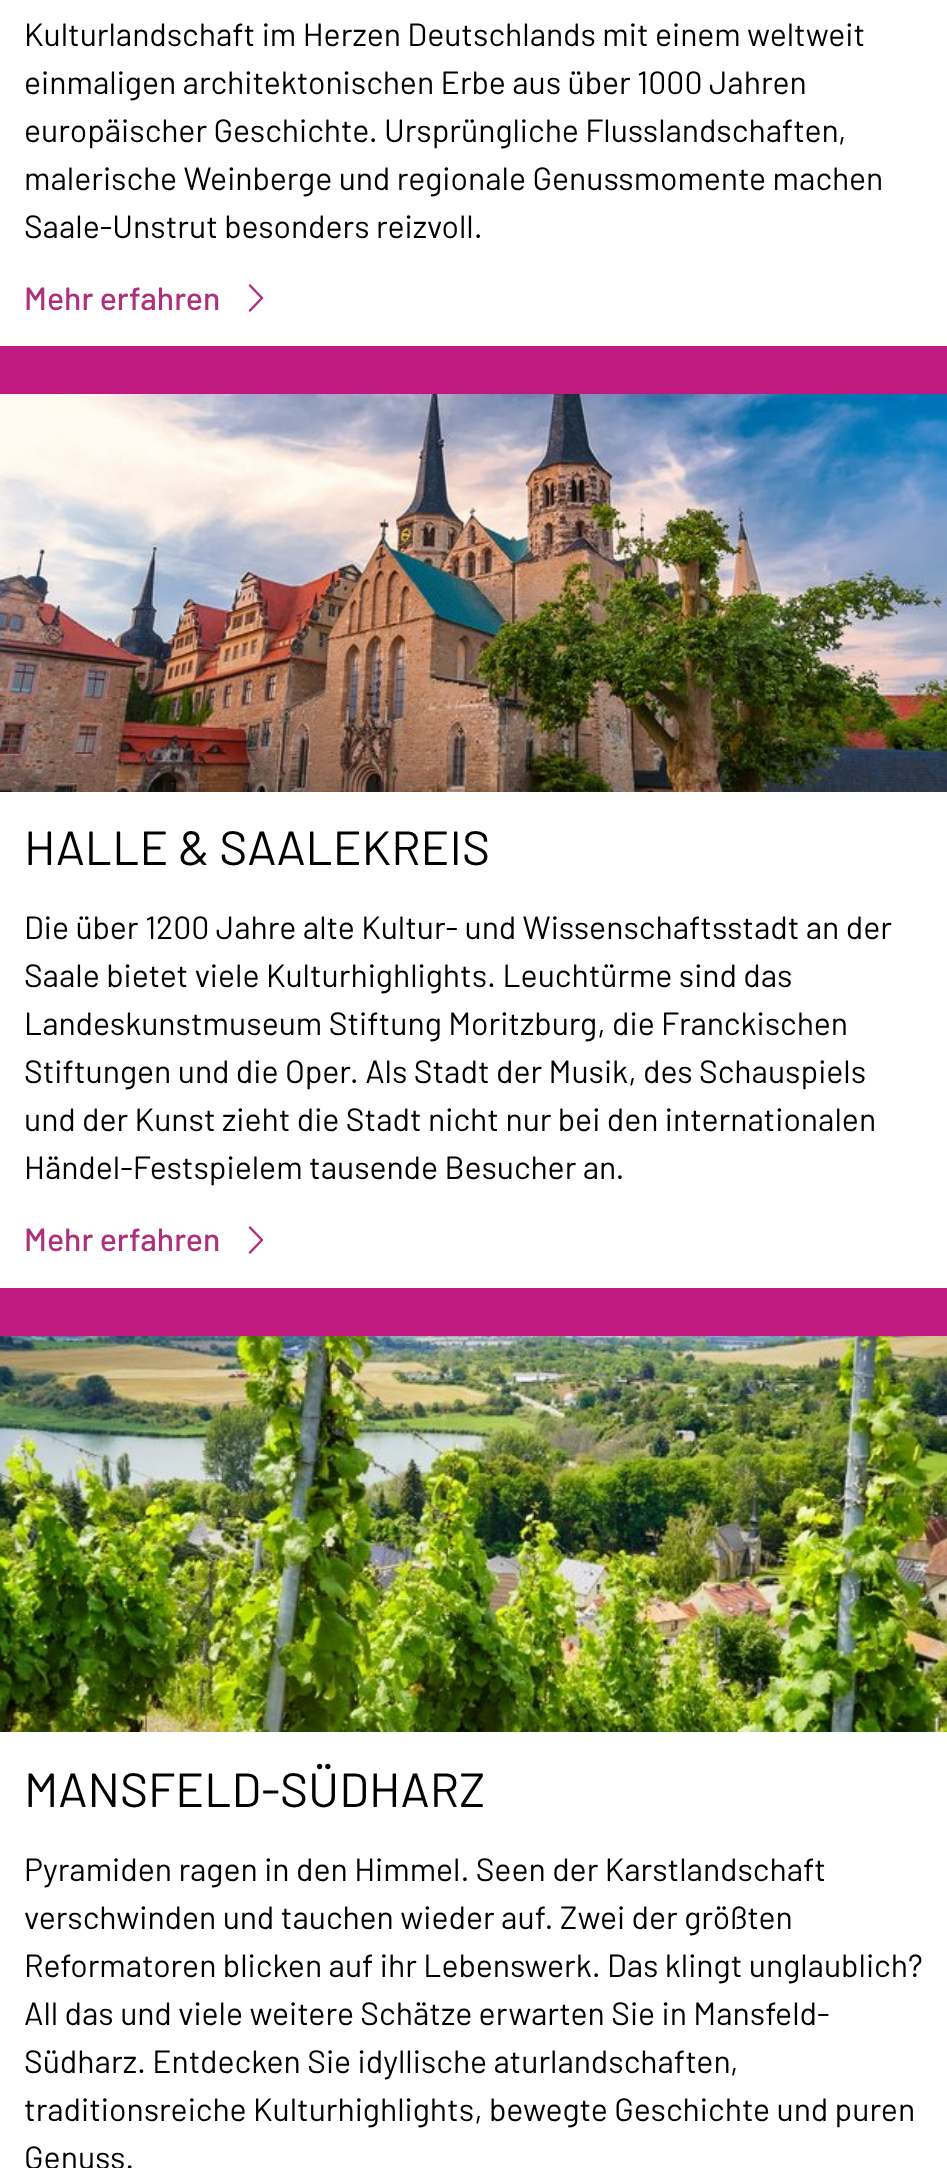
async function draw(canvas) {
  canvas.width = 947
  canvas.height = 2168
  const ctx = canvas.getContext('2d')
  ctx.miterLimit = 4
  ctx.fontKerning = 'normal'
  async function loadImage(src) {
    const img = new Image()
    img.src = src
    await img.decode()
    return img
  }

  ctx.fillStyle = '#fff'
  ctx.fillRect(0, 0, 947, 2168)
  ctx.drawImage(await loadImage('image0.png'), 0, 346, 947, 990)
  ctx.font = '32px Barlow'
  ctx.fillStyle = '#000'
  ctx.fillText('Kulturlandschaft im Herzen Deutschlands mit einem weltweit', 24, 46)
  ctx.fillText('einmaligen architektonischen Erbe aus über 1000 Jahren', 24, 94)
  ctx.fillText('europäischer Geschichte. Ursprüngliche Flusslandschaften,', 24, 142)
  ctx.fillText('malerische Weinberge und regionale Genussmomente machen', 24, 190)
  ctx.fillText('Saale-Unstrut besonders reizvoll.', 24, 238)
  ctx.font = '500 32px Barlow'
  ctx.fillStyle = '#ae307d'
  ctx.fillText('Mehr erfahren', 24, 310)
  ctx.beginPath()
  ctx.moveTo(250, 285.5)
  ctx.lineTo(262, 298)
  ctx.lineTo(250, 310.5)
  ctx.strokeStyle = '#ae307d'
  ctx.lineWidth = 2.5
  ctx.lineCap = 'round'
  ctx.lineJoin = 'round'
  ctx.stroke()
  ctx.fillStyle = '#fff'
  ctx.fillRect(0, 792, 947, 496)
  ctx.drawImage(await loadImage('image1.png'), 0, 394, 947, 398)
  ctx.font = '48px Barlow'
  ctx.fillStyle = '#000'
  ctx.fillText('HALLE & SAALEKREIS', 24, 865)
  ctx.font = '32px Barlow'
  ctx.fillText('Die über 1200 Jahre alte Kultur- und Wissenschaftsstadt an der', 24, 939)
  ctx.fillText('Saale bietet viele Kulturhighlights. Leuchtürme sind das', 24, 987)
  ctx.fillText('Landeskunstmuseum Stiftung Moritzburg, die Franckischen', 24, 1035)
  ctx.fillText('Stiftungen und die Oper. Als Stadt der Musik, des Schauspiels', 24, 1083)
  ctx.fillText('und der Kunst zieht die Stadt nicht nur bei den internationalen', 24, 1131)
  ctx.fillText('Händel-Festspielem tausende Besucher an.', 24, 1179)
  ctx.font = '500 32px Barlow'
  ctx.fillStyle = '#ae307d'
  ctx.fillText('Mehr erfahren', 24, 1251)
  ctx.beginPath()
  ctx.moveTo(250, 1227.5)
  ctx.lineTo(262, 1240)
  ctx.lineTo(250, 1252.5)
  ctx.stroke()
  ctx.drawImage(await loadImage('image2.png'), 0, 1336, 947, 396)
  ctx.font = '48px Barlow'
  ctx.fillStyle = '#000'
  ctx.fillText('MANSFELD-SÜDHARZ', 24, 1807)
  ctx.font = '32px Barlow'
  ctx.fillText('Pyramiden ragen in den Himmel. Seen der Karstlandschaft', 24, 1881)
  ctx.fillText('verschwinden und tauchen wieder auf. Zwei der größten', 24, 1929)
  ctx.fillText('Reformatoren blicken auf ihr Lebenswerk. Das klingt unglaublich?', 24, 1977)
  ctx.fillText('All das und viele weitere Schätze erwarten Sie in Mansfeld-', 24, 2025)
  ctx.fillText('Südharz. Entdecken Sie idyllische aturlandschaften,', 24, 2073)
  ctx.fillText('traditionsreiche Kulturhighlights, bewegte Geschichte und puren', 24, 2121)
  ctx.fillText('Genuss.', 24, 2169)
}

draw(document.querySelector('canvas'))
